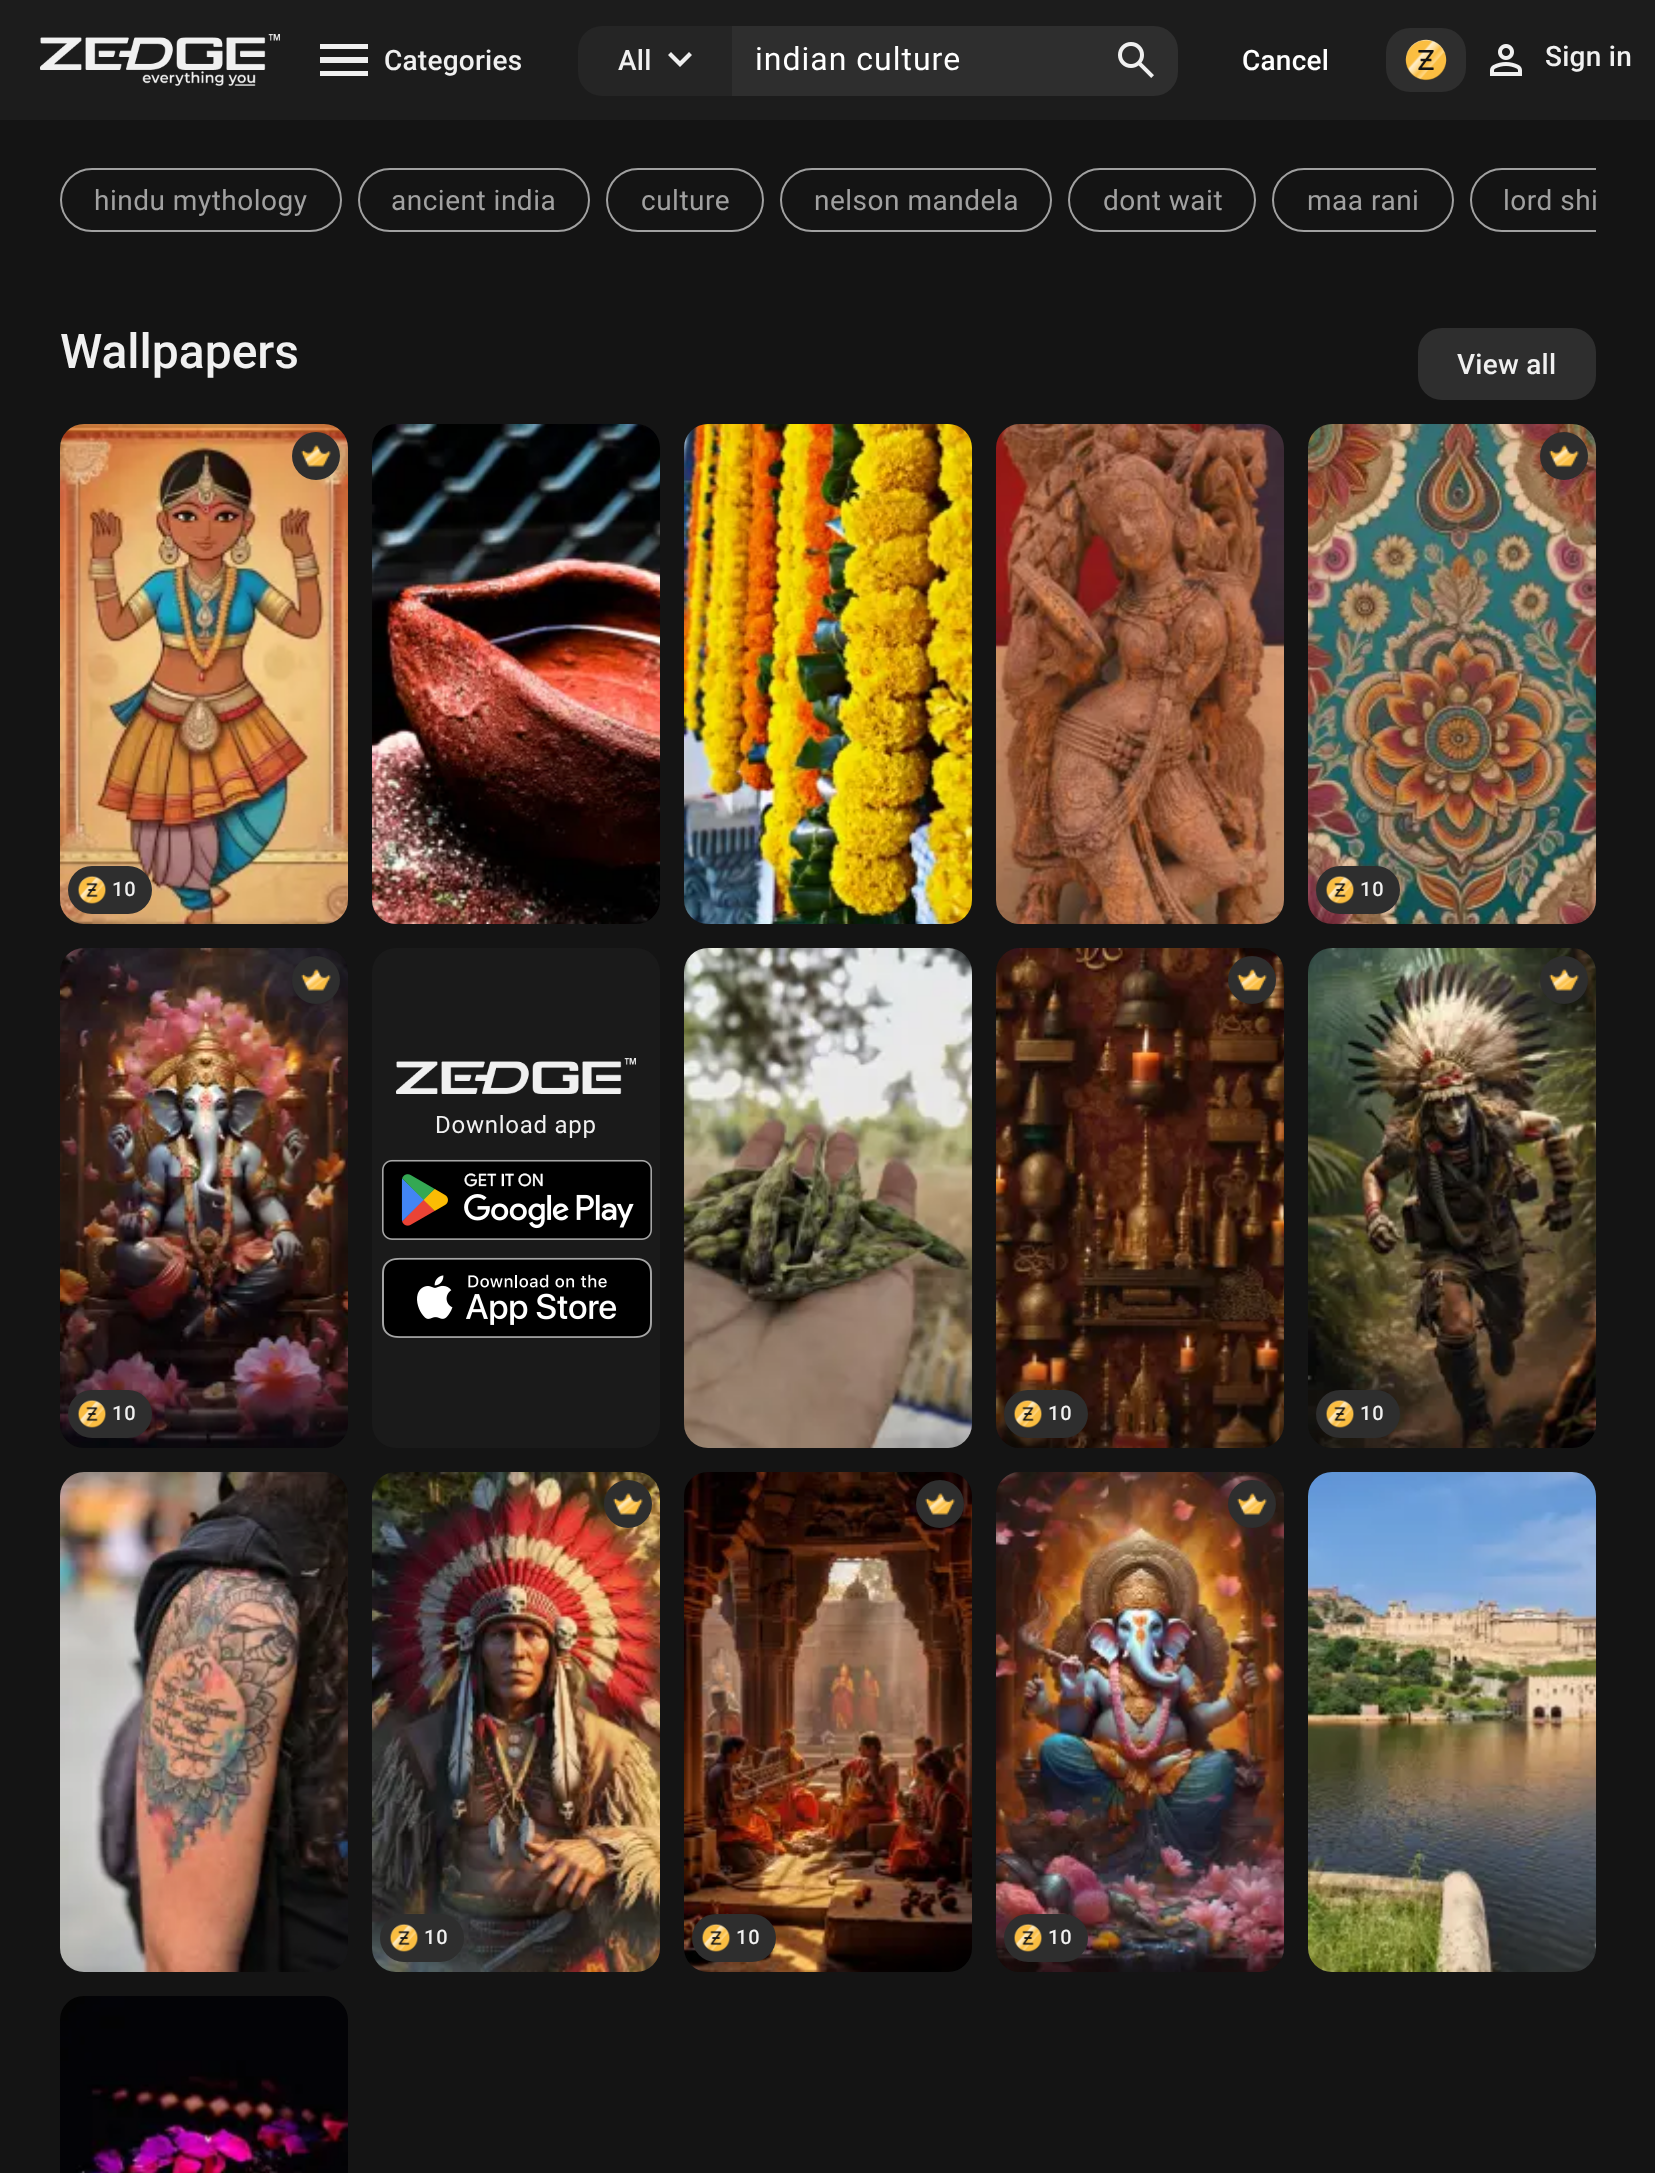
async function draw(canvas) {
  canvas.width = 1655
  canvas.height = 2173
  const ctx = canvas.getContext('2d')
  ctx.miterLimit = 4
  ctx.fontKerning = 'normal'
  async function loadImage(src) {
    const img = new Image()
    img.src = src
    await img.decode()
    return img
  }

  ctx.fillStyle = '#141414'
  ctx.fillRect(0, 0, 1655, 2173)
  ctx.fillStyle = '#1c1c1c'
  ctx.fillRect(0, 0, 1655, 120)
  ctx.drawImage(await loadImage('image0.png'), 40, 34, 240, 36)
  ctx.drawImage(await loadImage('image1.png'), 142, 71, 114, 15)
  ctx.fillStyle = '#f0f0f0'
  ctx.beginPath()
  ctx.moveTo(320, 76)
  ctx.lineTo(320, 71)
  ctx.lineTo(368, 71)
  ctx.lineTo(368, 76)
  ctx.closePath()
  ctx.moveTo(320, 63)
  ctx.lineTo(320, 57)
  ctx.lineTo(368, 57)
  ctx.lineTo(368, 63)
  ctx.closePath()
  ctx.moveTo(320, 49)
  ctx.lineTo(320, 44)
  ctx.lineTo(368, 44)
  ctx.lineTo(368, 49)
  ctx.closePath()
  ctx.fill()
  ctx.letterSpacing = '0.25px'
  ctx.font = '500 28px Roboto'
  ctx.fillText('Categories', 384, 70)
  ctx.fillStyle = '#252525'
  ctx.beginPath()
  ctx.roundRect(578, 26, 154, 70, [24, 0, 0, 24])
  ctx.fill()
  ctx.fillStyle = '#f0f0f0'
  ctx.fillText('All', 618, 70)
  ctx.beginPath()
  ctx.moveTo(680, 67)
  ctx.lineTo(668, 55)
  ctx.lineTo(671, 52)
  ctx.lineTo(680, 61)
  ctx.lineTo(689, 52)
  ctx.lineTo(692, 55)
  ctx.closePath()
  ctx.fill()
  ctx.fillStyle = '#2e2e2e'
  ctx.beginPath()
  ctx.roundRect(732, 26, 446, 70, [0, 24, 24, 0])
  ctx.fill()
  ctx.letterSpacing = '1px'
  ctx.font = '32px Roboto'
  ctx.fillStyle = '#fff'
  ctx.fillText('indian culture', 755, 70)
  ctx.drawImage(await loadImage('image2.png'), 1118, 42, 36, 36)
  ctx.letterSpacing = '0.25px'
  ctx.font = '500 28px Roboto'
  ctx.fillText('Cancel', 1242, 70)
  ctx.fillStyle = '#2e2e2e'
  ctx.beginPath()
  ctx.roundRect(1386, 28, 80, 64, 24)
  ctx.fill()
  ctx.drawImage(await loadImage('image3.png'), 1405, 39, 42, 42)
  ctx.drawImage(await loadImage('image4.png'), 1490, 44, 32, 32)
  ctx.fillStyle = '#f0f0f0'
  ctx.fillText('Sign in', 1545, 66)
  ctx.beginPath()
  ctx.roundRect(61, 169, 280, 62, 31)
  ctx.strokeStyle = '#a1a1a1'
  ctx.lineWidth = 2
  ctx.stroke()
  ctx.letterSpacing = '0.5px'
  ctx.font = '28px Roboto'
  ctx.fillStyle = '#a1a1a1'
  ctx.fillText('hindu mythology', 94, 210)
  ctx.beginPath()
  ctx.roundRect(359, 169, 230, 62, 31)
  ctx.stroke()
  ctx.fillText('ancient india', 391, 210)
  ctx.beginPath()
  ctx.roundRect(607, 169, 156, 62, 31)
  ctx.stroke()
  ctx.fillText('culture', 641, 210)
  ctx.beginPath()
  ctx.roundRect(781, 169, 270, 62, 31)
  ctx.stroke()
  ctx.fillText('nelson mandela', 814, 210)
  ctx.beginPath()
  ctx.roundRect(1069, 169, 186, 62, 31)
  ctx.stroke()
  ctx.fillText('dont wait', 1103, 210)
  ctx.beginPath()
  ctx.roundRect(1273, 169, 180, 62, 31)
  ctx.stroke()
  ctx.fillText('maa rani', 1307, 210)
  ctx.save()
  ctx.beginPath()
  ctx.rect(60, 168, 1536, 64)
  ctx.clip()
  ctx.beginPath()
  ctx.roundRect(1471, 169, 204, 62, 31)
  ctx.stroke()
  ctx.restore()
  ctx.fillText('lord shi', 1503, 210)
  ctx.letterSpacing = '0px'
  ctx.font = '500 48px Roboto'
  ctx.fillStyle = '#f0f0f0'
  ctx.fillText('Wallpapers', 60, 368)
  ctx.fillStyle = '#2e2e2e'
  ctx.beginPath()
  ctx.roundRect(1418, 328, 178, 72, 24)
  ctx.fill()
  ctx.letterSpacing = '0.25px'
  ctx.font = '500 28px Roboto'
  ctx.fillStyle = '#f0f0f0'
  ctx.fillText('View all', 1457, 374)
  ctx.drawImage(await loadImage('image5.png'), 60, 424, 288, 500)
  ctx.fillStyle = '#2e2e2e'
  ctx.beginPath()
  ctx.arc(316, 456, 24, 0, 2 * Math.PI)
  ctx.fill()
  ctx.drawImage(await loadImage('image6.png'), 301, 445, 30, 22)
  ctx.beginPath()
  ctx.roundRect(68, 866, 84, 48, 24)
  ctx.fill()
  ctx.drawImage(await loadImage('image7.png'), 78, 876, 28, 28)
  ctx.letterSpacing = '1px'
  ctx.font = '500 20px Roboto'
  ctx.fillStyle = '#f0f0f0'
  ctx.fillText('10', 112, 896)
  ctx.drawImage(await loadImage('image8.png'), 372, 424, 288, 500)
  ctx.drawImage(await loadImage('image9.png'), 684, 424, 288, 500)
  ctx.drawImage(await loadImage('image10.png'), 996, 424, 288, 500)
  ctx.drawImage(await loadImage('image11.png'), 1308, 424, 288, 500)
  ctx.fillStyle = '#2e2e2e'
  ctx.beginPath()
  ctx.arc(1564, 456, 24, 0, 2 * Math.PI)
  ctx.fill()
  ctx.drawImage(await loadImage('image6.png'), 1549, 445, 30, 22)
  ctx.beginPath()
  ctx.roundRect(1316, 866, 84, 48, 24)
  ctx.fill()
  ctx.drawImage(await loadImage('image7.png'), 1326, 876, 28, 28)
  ctx.fillStyle = '#f0f0f0'
  ctx.fillText('10', 1360, 896)
  ctx.fillStyle = '#1a1a1a'
  ctx.beginPath()
  ctx.roundRect(372, 948, 288, 500, 24)
  ctx.fill()
  ctx.drawImage(await loadImage('image12.png'), 396, 1058, 240, 36)
  ctx.letterSpacing = '0.75px'
  ctx.font = '24px Roboto'
  ctx.fillStyle = '#f0f0f0'
  ctx.fillText('Download app', 435, 1133)
  ctx.drawImage(await loadImage('image13.png'), 382, 1159, 270, 81)
  ctx.drawImage(await loadImage('image14.png'), 382, 1257, 270, 81)
  ctx.drawImage(await loadImage('image15.png'), 684, 948, 288, 500)
  ctx.drawImage(await loadImage('image16.png'), 60, 948, 288, 500)
  ctx.fillStyle = '#2e2e2e'
  ctx.beginPath()
  ctx.arc(316, 980, 24, 0, 2 * Math.PI)
  ctx.fill()
  ctx.drawImage(await loadImage('image6.png'), 301, 969, 30, 22)
  ctx.beginPath()
  ctx.roundRect(68, 1390, 84, 48, 24)
  ctx.fill()
  ctx.drawImage(await loadImage('image7.png'), 78, 1400, 28, 28)
  ctx.letterSpacing = '1px'
  ctx.font = '500 20px Roboto'
  ctx.fillStyle = '#f0f0f0'
  ctx.fillText('10', 112, 1420)
  ctx.drawImage(await loadImage('image17.png'), 996, 948, 288, 500)
  ctx.fillStyle = '#2e2e2e'
  ctx.beginPath()
  ctx.arc(1252, 980, 24, 0, 2 * Math.PI)
  ctx.fill()
  ctx.drawImage(await loadImage('image6.png'), 1237, 969, 30, 22)
  ctx.beginPath()
  ctx.roundRect(1004, 1390, 84, 48, 24)
  ctx.fill()
  ctx.drawImage(await loadImage('image7.png'), 1014, 1400, 28, 28)
  ctx.fillStyle = '#f0f0f0'
  ctx.fillText('10', 1048, 1420)
  ctx.drawImage(await loadImage('image18.png'), 1308, 948, 288, 500)
  ctx.fillStyle = '#2e2e2e'
  ctx.beginPath()
  ctx.arc(1564, 980, 24, 0, 2 * Math.PI)
  ctx.fill()
  ctx.drawImage(await loadImage('image6.png'), 1549, 969, 30, 22)
  ctx.beginPath()
  ctx.roundRect(1316, 1390, 84, 48, 24)
  ctx.fill()
  ctx.drawImage(await loadImage('image7.png'), 1326, 1400, 28, 28)
  ctx.fillStyle = '#f0f0f0'
  ctx.fillText('10', 1360, 1420)
  ctx.drawImage(await loadImage('image19.png'), 60, 1472, 288, 500)
  ctx.drawImage(await loadImage('image20.png'), 372, 1472, 288, 500)
  ctx.fillStyle = '#2e2e2e'
  ctx.beginPath()
  ctx.arc(628, 1504, 24, 0, 2 * Math.PI)
  ctx.fill()
  ctx.drawImage(await loadImage('image6.png'), 613, 1493, 30, 22)
  ctx.beginPath()
  ctx.roundRect(380, 1914, 84, 48, 24)
  ctx.fill()
  ctx.drawImage(await loadImage('image7.png'), 390, 1924, 28, 28)
  ctx.fillStyle = '#f0f0f0'
  ctx.fillText('10', 424, 1944)
  ctx.drawImage(await loadImage('image21.png'), 684, 1472, 288, 500)
  ctx.fillStyle = '#2e2e2e'
  ctx.beginPath()
  ctx.arc(940, 1504, 24, 0, 2 * Math.PI)
  ctx.fill()
  ctx.drawImage(await loadImage('image6.png'), 925, 1493, 30, 22)
  ctx.beginPath()
  ctx.roundRect(692, 1914, 84, 48, 24)
  ctx.fill()
  ctx.drawImage(await loadImage('image7.png'), 702, 1924, 28, 28)
  ctx.fillStyle = '#f0f0f0'
  ctx.fillText('10', 736, 1944)
  ctx.drawImage(await loadImage('image22.png'), 996, 1472, 288, 500)
  ctx.fillStyle = '#2e2e2e'
  ctx.beginPath()
  ctx.arc(1252, 1504, 24, 0, 2 * Math.PI)
  ctx.fill()
  ctx.drawImage(await loadImage('image6.png'), 1237, 1493, 30, 22)
  ctx.beginPath()
  ctx.roundRect(1004, 1914, 84, 48, 24)
  ctx.fill()
  ctx.drawImage(await loadImage('image7.png'), 1014, 1924, 28, 28)
  ctx.fillStyle = '#f0f0f0'
  ctx.fillText('10', 1048, 1944)
  ctx.drawImage(await loadImage('image23.png'), 1308, 1472, 288, 500)
  ctx.drawImage(await loadImage('image24.png'), 60, 1996, 288, 177)
}

draw(document.querySelector('canvas'))
